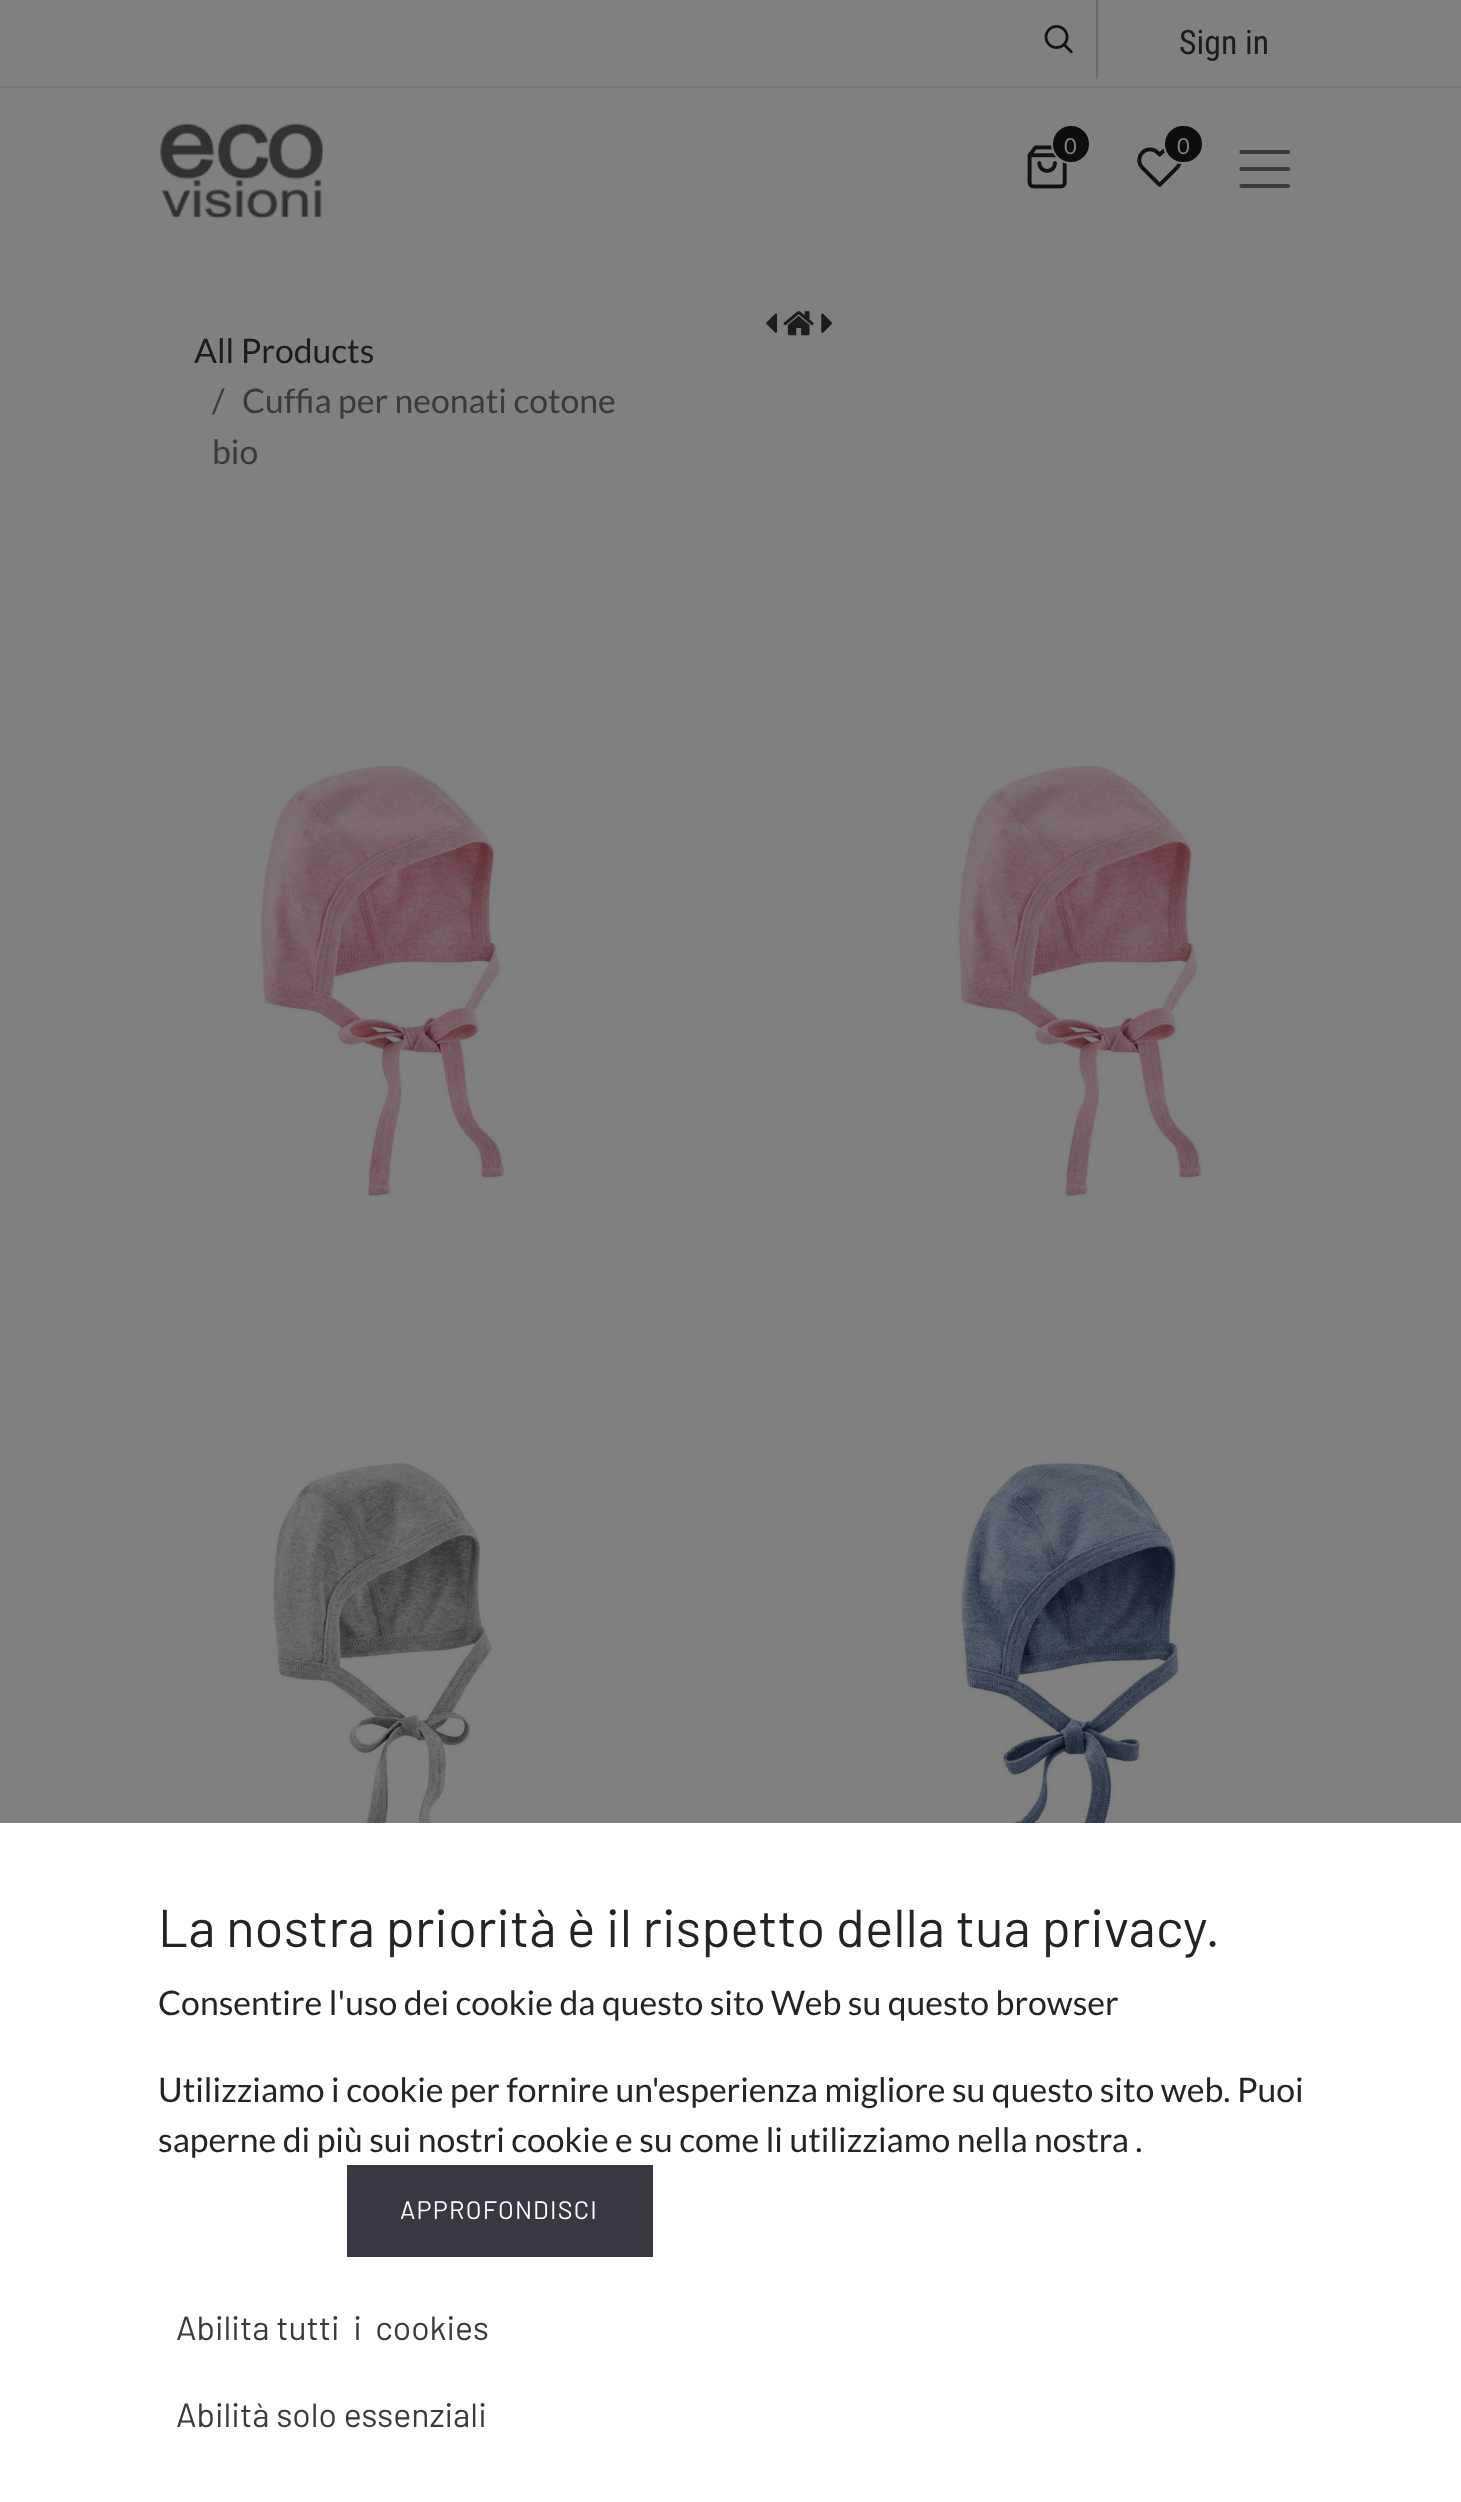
async function draw(canvas) {
  canvas.width = 1461
  canvas.height = 2502
  const ctx = canvas.getContext('2d')
  ctx.miterLimit = 4
  ctx.fontKerning = 'normal'
  async function loadImage(src) {
    const img = new Image()
    img.src = src
    await img.decode()
    return img
  }

  ctx.fillStyle = '#808080'
  ctx.fillRect(0, 0, 1461, 2502)
  ctx.drawImage(await loadImage('image0.png'), 1044, 25, 29, 29)
  ctx.fillStyle = '#6a6a6a'
  ctx.fillRect(1096, 0, 2, 79)
  ctx.font = '33.75px Roboto Condensed'
  ctx.fillStyle = '#1a1d20'
  ctx.fillText('Sign in', 1179, 54)
  ctx.fillStyle = '#777'
  ctx.fillRect(0, 86, 1461, 2)
  ctx.drawImage(await loadImage('image1.png'), 160, 123, 163, 96)
  ctx.drawImage(await loadImage('image2.png'), 1027, 145, 40, 44)
  ctx.fillStyle = '#0d0d0d'
  ctx.beginPath()
  ctx.arc(1071, 144, 19, 0, 2 * Math.PI)
  ctx.fill()
  ctx.strokeStyle = '#808080'
  ctx.lineWidth = 2
  ctx.stroke()
  ctx.font = '22px Lato'
  ctx.fillStyle = '#808080'
  ctx.fillText('0', 1064, 154)
  ctx.drawImage(await loadImage('image3.png'), 1137, 147, 45, 40)
  ctx.fillStyle = '#0d0d0d'
  ctx.beginPath()
  ctx.roundRect(1164, 125, 39, 38, 19)
  ctx.fill()
  ctx.stroke()
  ctx.fillStyle = '#808080'
  ctx.fillText('0', 1177, 154)
  ctx.beginPath()
  ctx.moveTo(1241.5, 152)
  ctx.lineTo(1288, 152)
  ctx.moveTo(1241.5, 169)
  ctx.lineTo(1288, 169)
  ctx.moveTo(1241.5, 186)
  ctx.lineTo(1288, 186)
  ctx.strokeStyle = '#3a3a3a'
  ctx.lineWidth = 4.2
  ctx.lineCap = 'round'
  ctx.stroke()
  ctx.drawImage(await loadImage('image4.png'), 766, 313, 12, 20)
  ctx.drawImage(await loadImage('image5.png'), 783, 311, 31, 25)
  ctx.drawImage(await loadImage('image6.png'), 821, 313, 12, 20)
  ctx.font = '33.75px Lato'
  ctx.fillStyle = '#1a1d20'
  ctx.fillText('All Products', 194, 363)
  ctx.fillStyle = '#363b3f'
  ctx.fillText('/', 212, 413)
  ctx.fillText('Cuffia per neonati cotone', 242, 413)
  ctx.fillText('bio', 212, 464)
  ctx.drawImage(await loadImage('image7.png'), 259, 765, 247, 434)
  ctx.drawImage(await loadImage('image8.png'), 956, 765, 247, 434)
  ctx.drawImage(await loadImage('image9.png'), 273, 1462, 219, 361)
  ctx.drawImage(await loadImage('image10.png'), 960, 1462, 220, 361)
  ctx.fillStyle = '#fff'
  ctx.fillRect(0, 1823, 1461, 679)
  ctx.font = '53.25px Barlow'
  ctx.fillStyle = '#212529'
  ctx.fillText('La nostra priorità è il rispetto della tua privacy.', 158, 1947)
  ctx.font = '33.75px Lato'
  ctx.fillText('Consentire l\'uso dei cookie da questo sito Web su questo browser', 158, 2015)
  ctx.fillText('Utilizziamo i cookie per fornire un\'esperienza migliore su questo sito web. Puoi', 158, 2102)
  ctx.fillText('saperne di più sui nostri cookie e su come li utilizziamo nella nostra .', 158, 2152)
  ctx.fillStyle = '#343a40'
  ctx.fillRect(347, 2165, 306, 92)
  ctx.letterSpacing = '1.25px'
  ctx.font = '25.25px Barlow'
  ctx.fillStyle = '#fff'
  ctx.fillText('APPROFONDISCI', 400, 2219)
  ctx.letterSpacing = '0px'
  ctx.font = '33.75px Barlow'
  ctx.fillStyle = '#363b3f'
  ctx.fillText('Abilita tutti  i  cookies', 176, 2340)
  ctx.fillText('Abilità solo essenziali', 176, 2427)
}

draw(document.querySelector('canvas'))
